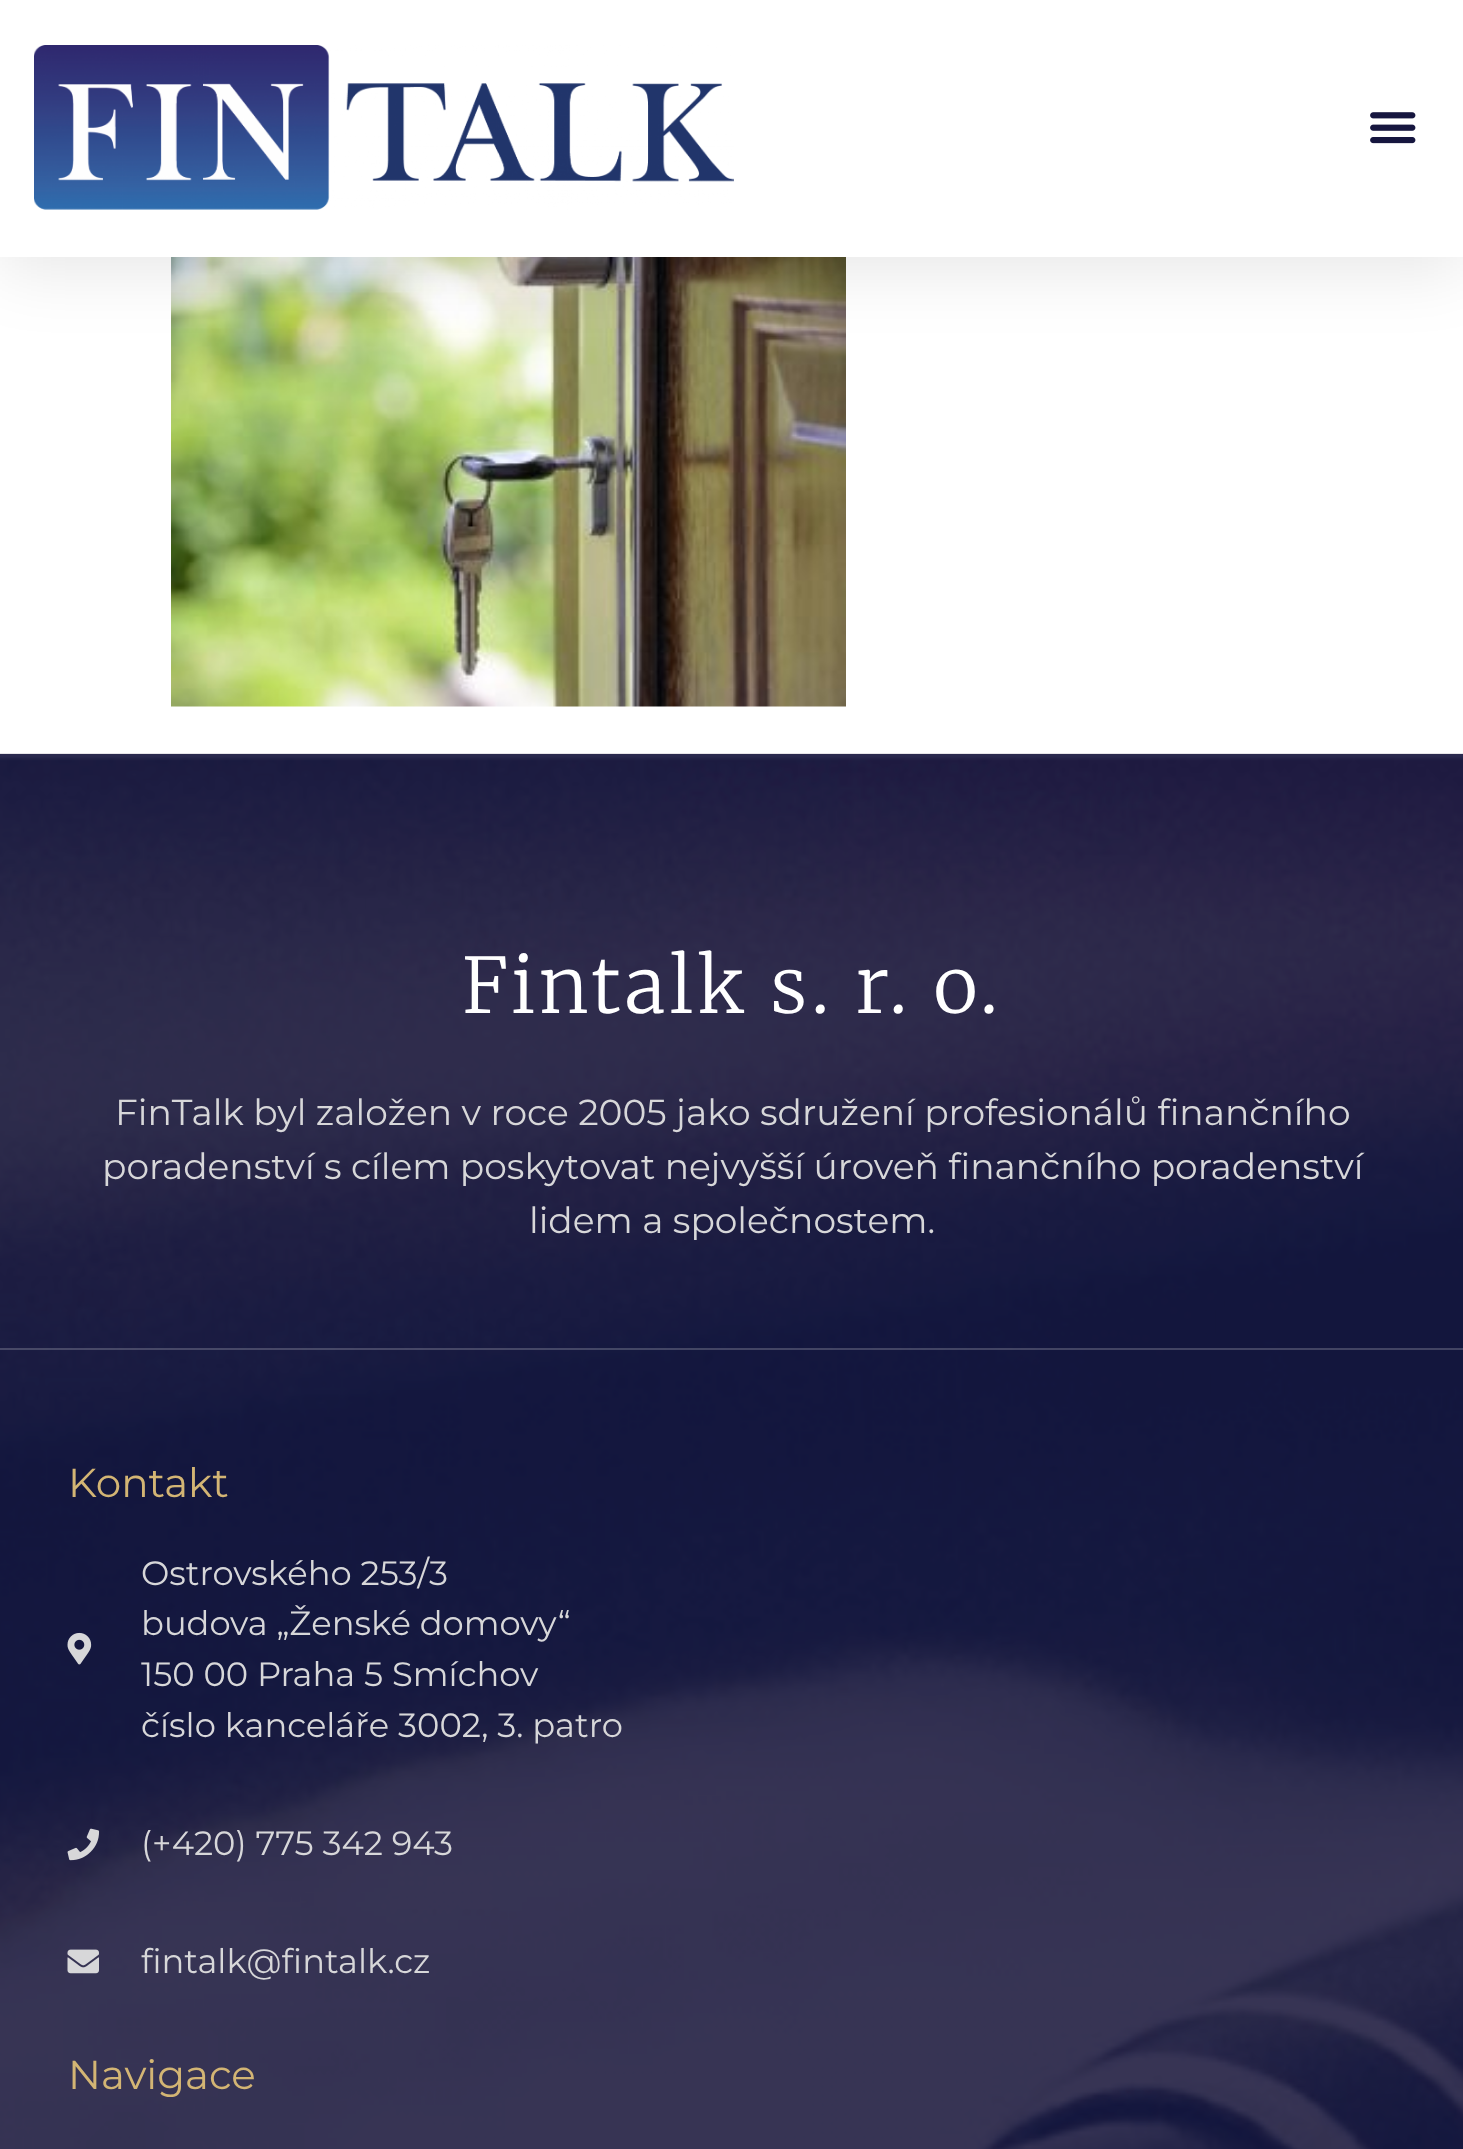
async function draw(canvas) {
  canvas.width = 1463
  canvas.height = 2149
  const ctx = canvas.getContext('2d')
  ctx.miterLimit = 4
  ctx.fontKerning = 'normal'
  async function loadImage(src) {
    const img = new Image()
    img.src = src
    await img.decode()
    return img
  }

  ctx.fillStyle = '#fff'
  ctx.fillRect(0, 0, 1463, 2149)
  ctx.fillStyle = '#39395c'
  ctx.fillRect(0, 754, 1463, 7)
  ctx.drawImage(await loadImage('image2.png'), 171, 257, 675, 450)
  ctx.fillStyle = '#0000001a'
  ctx.filter = 'blur(34px)'
  ctx.beginPath()
  ctx.rect(0, 11, 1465, 257)
  ctx.fill()
  ctx.filter = 'none'
  ctx.fillStyle = '#fff'
  ctx.fillRect(0, 0, 1463, 257)
  ctx.drawImage(await loadImage('image0.png'), 34, 45, 700, 165)
  ctx.drawImage(await loadImage('image1.png'), 1370, 112, 46, 32)
  ctx.drawImage(await loadImage('image3.png'), 0, 753, 1463, 1396)
  ctx.fillStyle = '#ffffff33'
  ctx.fillRect(0, 1348, 1463, 2)
  ctx.letterSpacing = '4px'
  ctx.font = '300 76.5px Merriweather'
  ctx.fillStyle = '#fff'
  ctx.fillText('Fintalk s. r. o.', 462, 1013)
  ctx.letterSpacing = '0px'
  ctx.font = '36px Montserrat'
  ctx.fillStyle = '#d7d7d9'
  ctx.fillText('FinTalk byl založen v roce 2005 jako sdružení profesionálů finančního', 115, 1125)
  ctx.fillText('poradenství s cílem poskytovat nejvyšší úroveň finančního poradenství', 102, 1179)
  ctx.fillText('lidem a společnostem.', 529, 1233)
  ctx.font = '40.5px Montserrat'
  ctx.fillStyle = '#d3b574'
  ctx.fillText('Kontakt', 68, 1497)
  ctx.drawImage(await loadImage('image4.png'), 67, 1632, 25, 33)
  ctx.font = '33.75px Montserrat'
  ctx.fillStyle = '#d7d7d9'
  ctx.fillText('Ostrovského 253/3', 141, 1585)
  ctx.fillText('budova „Ženské domovy“', 141, 1635)
  ctx.fillText('150 00 Praha 5 Smíchov', 141, 1686)
  ctx.fillText('číslo kanceláře 3002, 3. patro', 141, 1737)
  ctx.drawImage(await loadImage('image5.png'), 67, 1828, 33, 33)
  ctx.fillText('(+420) 775 342 943', 141, 1855)
  ctx.drawImage(await loadImage('image6.png'), 67, 1949, 32, 25)
  ctx.fillText('fintalk@fintalk.cz', 141, 1973)
  ctx.font = '40.5px Montserrat'
  ctx.fillStyle = '#d3b574'
  ctx.fillText('Navigace', 68, 2089)
}

draw(document.querySelector('canvas'))
